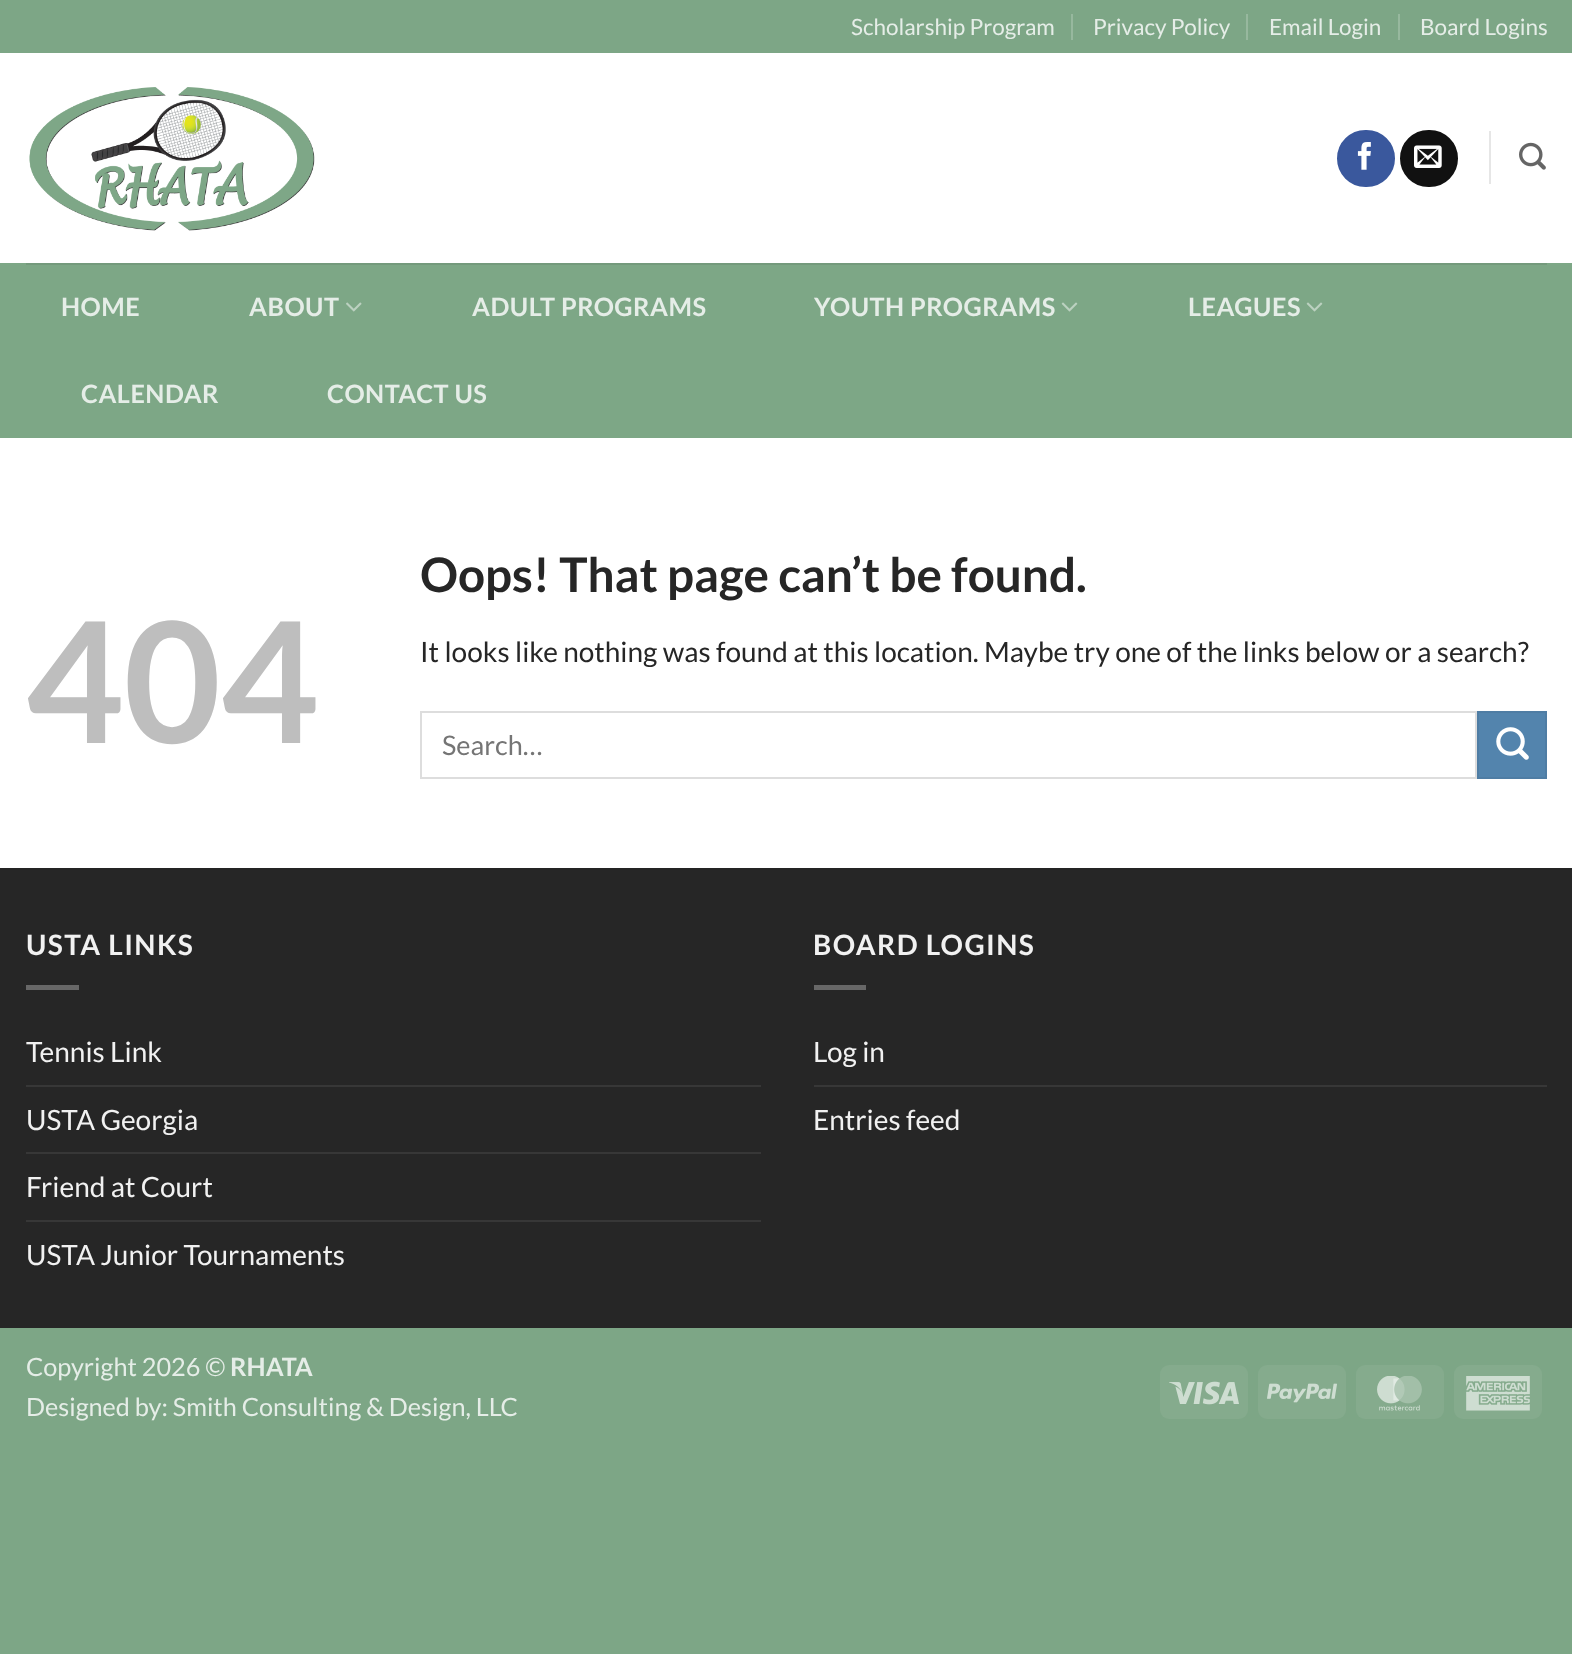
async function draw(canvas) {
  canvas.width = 1572
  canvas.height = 1654
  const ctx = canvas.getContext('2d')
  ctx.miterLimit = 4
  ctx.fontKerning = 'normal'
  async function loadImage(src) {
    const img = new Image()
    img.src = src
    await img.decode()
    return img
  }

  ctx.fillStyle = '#7da686'
  ctx.fillRect(0, 0, 1572, 1654)
  ctx.fillStyle = '#fff'
  ctx.fillRect(0, 53, 1572, 815)
  ctx.font = '22.5px Lato'
  ctx.fillStyle = '#e5ede7'
  ctx.fillText('Scholarship Program', 851, 35)
  ctx.fillStyle = '#97b89e'
  ctx.fillRect(1071, 14, 2, 26)
  ctx.fillStyle = '#e5ede7'
  ctx.fillText('Privacy Policy', 1093, 35)
  ctx.fillStyle = '#97b89e'
  ctx.fillRect(1246, 14, 2, 26)
  ctx.fillStyle = '#e5ede7'
  ctx.fillText('Email Login', 1269, 35)
  ctx.fillStyle = '#97b89e'
  ctx.fillRect(1398, 14, 2, 26)
  ctx.fillStyle = '#e5ede7'
  ctx.fillText('Board Logins', 1420, 35)
  ctx.drawImage(await loadImage('image0.png'), 29, 87, 286, 144)
  ctx.fillStyle = '#3a589d'
  ctx.beginPath()
  ctx.roundRect(1338, 131, 56, 55, 27.5)
  ctx.fill()
  ctx.strokeStyle = '#3a589d'
  ctx.lineWidth = 2
  ctx.stroke()
  ctx.drawImage(await loadImage('image1.png'), 1357, 142, 14, 28)
  ctx.fillStyle = '#111'
  ctx.beginPath()
  ctx.roundRect(1401, 131, 56, 55, 27.5)
  ctx.fill()
  ctx.strokeStyle = '#111'
  ctx.stroke()
  ctx.drawImage(await loadImage('image2.png'), 1414, 145, 28, 23)
  ctx.fillStyle = '#e6e6e6'
  ctx.fillRect(1489, 131, 2, 53)
  ctx.drawImage(await loadImage('image3.png'), 1519, 142, 27, 28)
  ctx.fillStyle = '#7da786'
  ctx.fillRect(0, 263, 1572, 175)
  ctx.fillStyle = '#749a7c'
  ctx.fillRect(26, 263, 1521, 2)
  ctx.letterSpacing = '0.5px'
  ctx.font = 'bold 25.25px Lato'
  ctx.fillStyle = '#e5ede7'
  ctx.fillText('HOME', 61, 316)
  ctx.fillText('ABOUT', 249, 316)
  ctx.drawImage(await loadImage('image4.png'), 346, 302, 16, 10)
  ctx.fillText('ADULT PROGRAMS', 472, 316)
  ctx.fillText('YOUTH PROGRAMS', 814, 316)
  ctx.drawImage(await loadImage('image5.png'), 1061, 302, 17, 10)
  ctx.fillText('LEAGUES', 1188, 316)
  ctx.drawImage(await loadImage('image5.png'), 1306, 302, 17, 10)
  ctx.fillText('CALENDAR', 81, 403)
  ctx.fillText('CONTACT US', 327, 403)
  ctx.letterSpacing = '0px'
  ctx.font = 'bold 168px Lato'
  ctx.fillStyle = '#bebebe'
  ctx.fillText('404', 26, 743)
  ctx.font = 'bold 47.6px Lato'
  ctx.fillStyle = '#262626'
  ctx.fillText('Oops! That page can’t be found.', 420, 592)
  ctx.font = '28px Lato'
  ctx.fillText('It looks like nothing was found at this location. Maybe try one of the links below or a search?', 420, 662)
  ctx.strokeStyle = '#ddd'
  ctx.strokeRect(421, 712, 1055, 66)
  ctx.font = '27px Lato'
  ctx.fillStyle = '#757575'
  ctx.fillText('Search…', 442, 755)
  ctx.fillStyle = '#5384ad'
  ctx.beginPath()
  ctx.rect(1478, 712, 68, 66)
  ctx.fill()
  ctx.strokeStyle = '#4f7da4'
  ctx.stroke()
  ctx.drawImage(await loadImage('image6.png'), 1496, 727, 33, 33)
  ctx.fillStyle = '#262626'
  ctx.fillRect(0, 870, 1572, 458)
  ctx.fillStyle = '#242424'
  ctx.fillRect(0, 868, 1572, 2)
  ctx.letterSpacing = '1.4px'
  ctx.font = 'bold 28px Lato'
  ctx.fillStyle = '#f1f1f1'
  ctx.fillText('USTA LINKS', 26, 955)
  ctx.fillStyle = '#676767'
  ctx.fillRect(26, 985, 53, 5)
  ctx.letterSpacing = '0px'
  ctx.font = '28px Lato'
  ctx.fillStyle = '#f1f1f1'
  ctx.fillText('Tennis Link', 26, 1062)
  ctx.fillStyle = '#373737'
  ctx.fillRect(26, 1085, 735, 2)
  ctx.fillStyle = '#f1f1f1'
  ctx.fillText('USTA Georgia', 26, 1130)
  ctx.fillStyle = '#373737'
  ctx.fillRect(26, 1152, 735, 2)
  ctx.fillStyle = '#f1f1f1'
  ctx.fillText('Friend at Court', 26, 1197)
  ctx.fillStyle = '#373737'
  ctx.fillRect(26, 1220, 735, 2)
  ctx.fillStyle = '#f1f1f1'
  ctx.fillText('USTA Junior Tournaments', 26, 1265)
  ctx.letterSpacing = '1.4px'
  ctx.font = 'bold 28px Lato'
  ctx.fillText('BOARD LOGINS', 813, 955)
  ctx.fillStyle = '#676767'
  ctx.fillRect(814, 985, 52, 5)
  ctx.letterSpacing = '0px'
  ctx.font = '28px Lato'
  ctx.fillStyle = '#f1f1f1'
  ctx.fillText('Log in', 813, 1062)
  ctx.fillStyle = '#373737'
  ctx.fillRect(814, 1085, 733, 2)
  ctx.fillStyle = '#f1f1f1'
  ctx.fillText('Entries feed', 813, 1130)
  ctx.font = '25.25px Lato'
  ctx.fillStyle = '#e5ede7'
  ctx.fillText('Copyright 2026 ©', 26, 1376)
  ctx.font = 'bold 25.25px Lato'
  ctx.fillText('RHATA', 230, 1376)
  ctx.font = '25.25px Lato'
  ctx.fillText('Designed by: Smith Consulting & Design, LLC', 26, 1416)
  ctx.fillStyle = '#85ab8d'
  ctx.beginPath()
  ctx.roundRect(1160, 1365, 88, 54, 9)
  ctx.fill()
  ctx.drawImage(await loadImage('image7.png'), 1169, 1381, 70, 24)
  ctx.beginPath()
  ctx.roundRect(1258, 1365, 88, 54, 9)
  ctx.fill()
  ctx.drawImage(await loadImage('image8.png'), 1267, 1383, 70, 20)
  ctx.beginPath()
  ctx.roundRect(1356, 1365, 88, 54, 9)
  ctx.fill()
  ctx.drawImage(await loadImage('image9.png'), 1377, 1376, 45, 35)
  ctx.beginPath()
  ctx.roundRect(1454, 1365, 88, 54, 9)
  ctx.fill()
  ctx.drawImage(await loadImage('image10.png'), 1466, 1376, 64, 35)
}

draw(document.querySelector('canvas'))
